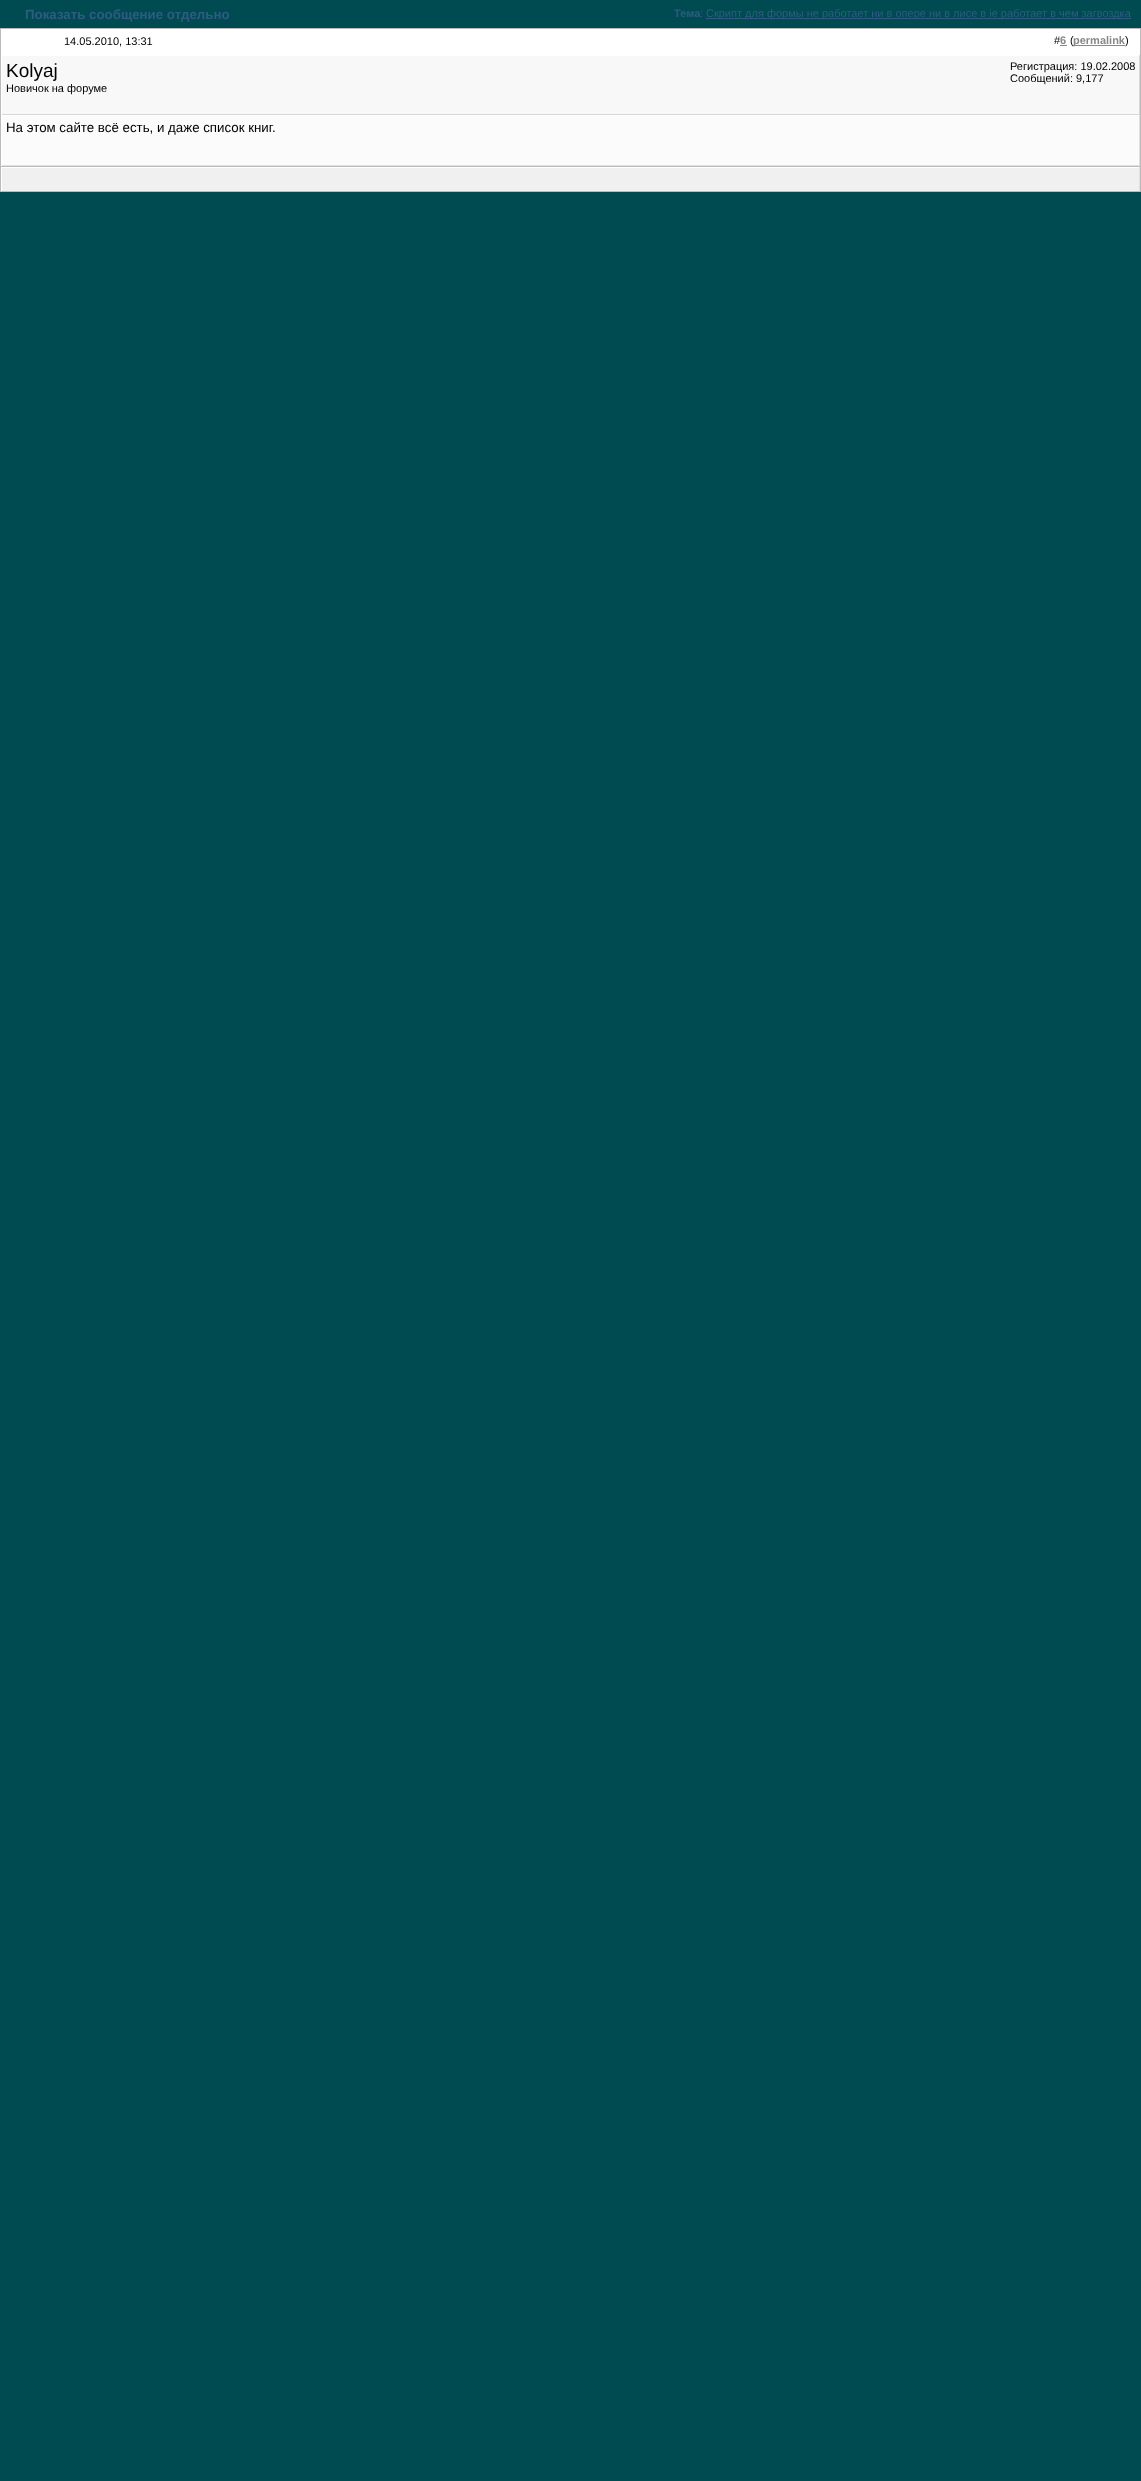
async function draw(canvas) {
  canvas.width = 1141
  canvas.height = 2481
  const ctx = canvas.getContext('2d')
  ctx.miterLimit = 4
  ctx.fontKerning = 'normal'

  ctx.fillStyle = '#004b52'
  ctx.fillRect(0, 0, 1141, 2481)
  ctx.font = 'bold 13.3px Liberation Sans'
  ctx.fillStyle = '#2e5b82'
  ctx.fillText('Показать сообщение отдельно', 25, 19)
  ctx.font = 'bold 11px Liberation Sans'
  ctx.fillText('Тема', 674, 17)
  ctx.font = '11px Liberation Sans'
  ctx.fillText(':', 700, 17)
  ctx.fillRect(706, 18, 425, 1)
  ctx.fillText('Скрипт для формы не работает ни в опере ни в лисе в ie работает в чем загвоздка', 706, 17)
  ctx.strokeStyle = '#bbb'
  ctx.strokeRect(0.5, 28.5, 1140, 138)
  ctx.fillStyle = '#fff'
  ctx.fillRect(1, 29, 1139, 27)
  ctx.fillStyle = '#000'
  ctx.fillText('14.05.2010, 13:31', 64, 45)
  ctx.fillText('#', 1054, 44)
  ctx.font = 'bold 11px Liberation Sans'
  ctx.fillStyle = '#888'
  ctx.fillText('6', 1060, 44)
  ctx.fillRect(1060, 45, 7, 1)
  ctx.font = '11px Liberation Sans'
  ctx.fillStyle = '#000'
  ctx.fillText('(', 1070, 44)
  ctx.fillStyle = '#888'
  ctx.fillRect(1073, 45, 52, 1)
  ctx.font = 'bold 11px Liberation Sans'
  ctx.fillText('permalink', 1073, 44)
  ctx.font = '11px Liberation Sans'
  ctx.fillStyle = '#000'
  ctx.fillText(')', 1125, 44)
  ctx.fillStyle = '#f8f8f8'
  ctx.fillRect(2, 56, 1137, 58)
  ctx.fillStyle = '#d7d7d7'
  ctx.fillRect(1139, 55, 1, 60)
  ctx.fillRect(1, 114, 1139, 1)
  ctx.fillStyle = '#fff'
  ctx.fillRect(1, 55, 1, 60)
  ctx.font = '19px Liberation Sans'
  ctx.fillStyle = '#000'
  ctx.fillText('Kolyaj', 6, 77)
  ctx.font = '11px Liberation Sans'
  ctx.fillText('Новичок на форуме', 6, 92)
  ctx.fillText('Регистрация: 19.02.2008', 1010, 70)
  ctx.fillText('Сообщений: 9,177', 1010, 82)
  ctx.fillStyle = '#fbfbfb'
  ctx.fillRect(2, 116, 1137, 49)
  ctx.fillStyle = '#fff'
  ctx.fillRect(1, 115, 1139, 1)
  ctx.fillStyle = '#e0e0e0'
  ctx.fillRect(1139, 115, 1, 51)
  ctx.fillRect(1, 165, 1139, 1)
  ctx.fillStyle = '#fff'
  ctx.fillRect(1, 115, 1, 51)
  ctx.font = '13.3px Liberation Sans'
  ctx.fillStyle = '#000'
  ctx.fillText('На этом сайте всё есть, и даже список книг.', 6, 132)
  ctx.fillStyle = '#bbb'
  ctx.fillRect(1140, 167, 1, 25)
  ctx.fillRect(0, 191, 1141, 1)
  ctx.fillRect(0, 167, 1, 25)
  ctx.fillStyle = '#f0f0f0'
  ctx.fillRect(2, 168, 1137, 23)
  ctx.fillStyle = '#fff'
  ctx.fillRect(1, 167, 1139, 1)
  ctx.fillStyle = '#e0e0e0'
  ctx.fillRect(1139, 167, 1, 24)
  ctx.fillStyle = '#fff'
  ctx.fillRect(1, 167, 1, 24)
}

draw(document.querySelector('canvas'))
